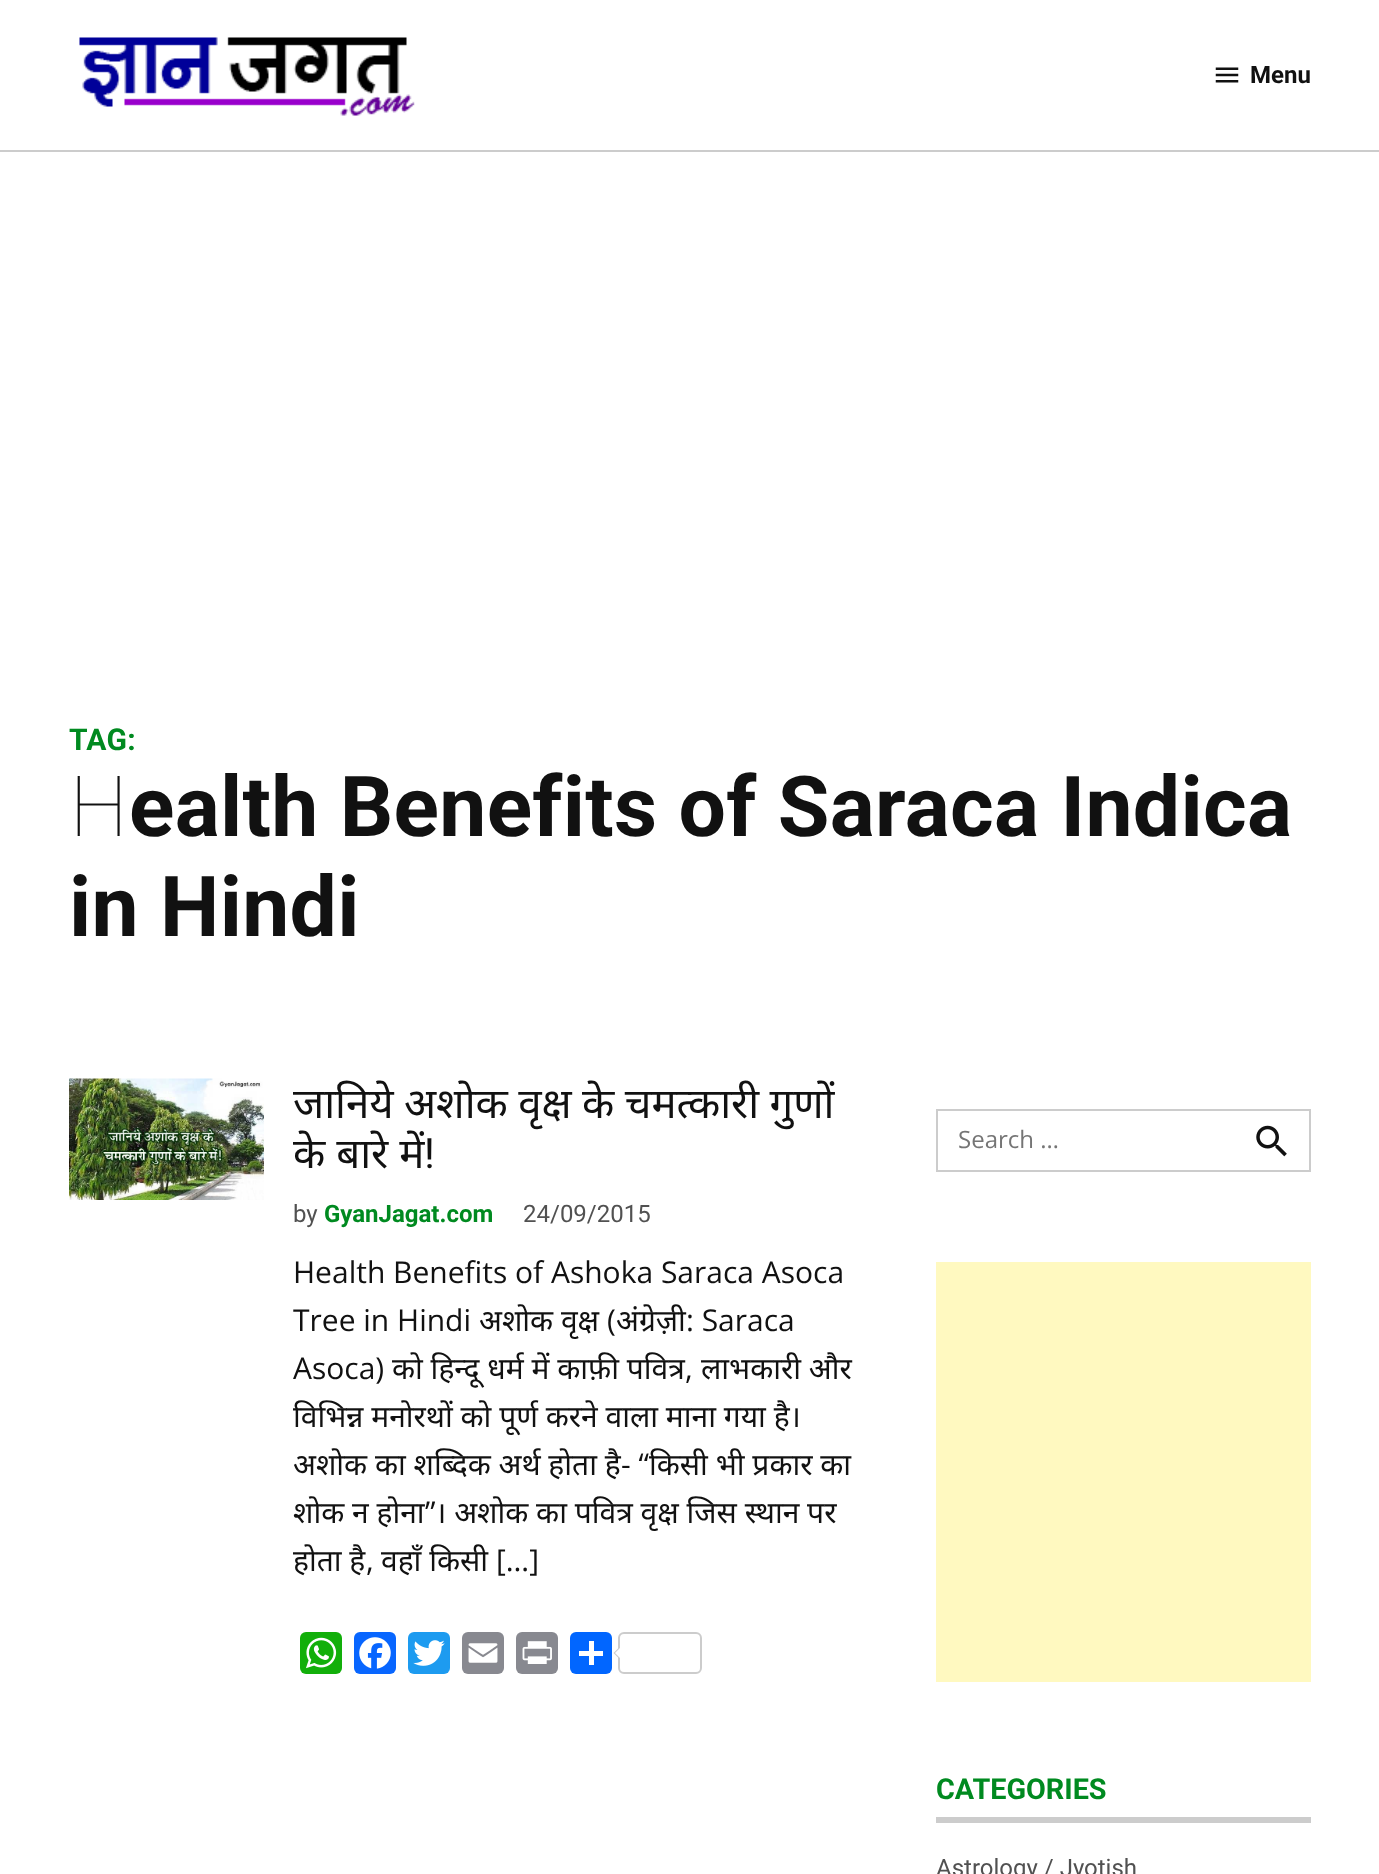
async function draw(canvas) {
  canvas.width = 1379
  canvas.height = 1874
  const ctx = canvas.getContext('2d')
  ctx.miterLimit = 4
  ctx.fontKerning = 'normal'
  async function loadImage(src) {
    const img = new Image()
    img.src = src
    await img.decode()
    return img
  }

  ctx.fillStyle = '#fff'
  ctx.fillRect(0, 0, 1379, 1874)
  ctx.fillStyle = '#ccc'
  ctx.fillRect(0, 150, 1379, 2)
  ctx.drawImage(await loadImage('image0.png'), 79, 37, 336, 79)
  ctx.drawImage(await loadImage('image1.png'), 1215, 67, 24, 16)
  ctx.font = 'bold 24px Roboto'
  ctx.fillStyle = '#111'
  ctx.fillText('Menu', 1250, 83)
  ctx.letterSpacing = '0.3px'
  ctx.font = 'bold 30px Roboto'
  ctx.fillStyle = '#008a20'
  ctx.fillText('TAG:', 69, 750)
  ctx.font = '100 84px Noto Sans'
  ctx.fillStyle = '#111'
  ctx.fillText('H', 69, 836)
  ctx.font = 'bold 84px Roboto'
  ctx.fillText('ealth Benefits of Saraca Indica', 129, 836)
  ctx.fillText('in Hindi', 69, 936)
  ctx.drawImage(await loadImage('image2.png'), 69, 1078, 195, 122)
  ctx.letterSpacing = '0px'
  ctx.wordSpacing = '-0.5px'
  ctx.font = '42px Noto Sans'
  ctx.fillText('जानिये अशोक वृक्ष के चमत्कारी गुणों', 293, 1118)
  ctx.wordSpacing = '0px'
  ctx.fillText('के बारे में', 293, 1168)
  ctx.font = '42px Roboto'
  ctx.fillText('!', 424, 1168)
  ctx.font = '24px Roboto'
  ctx.fillStyle = '#515151'
  ctx.fillText('by', 293, 1222)
  ctx.font = 'bold 24px Roboto'
  ctx.fillStyle = '#008a20'
  ctx.fillText('GyanJagat.com', 324, 1222)
  ctx.font = '24px Roboto'
  ctx.fillStyle = '#515151'
  ctx.fillText('24/09/2015', 523, 1222)
  ctx.font = '30px Open Sans'
  ctx.fillStyle = '#111'
  ctx.fillText('Health Benefits of Ashoka Saraca Asoca', 293, 1283)
  ctx.fillText('Tree in Hindi', 293, 1331)
  ctx.font = '30px Noto Sans'
  ctx.fillText('अशोक वृक्ष', 479, 1331)
  ctx.font = '30px Open Sans'
  ctx.fillText('(', 607, 1331)
  ctx.font = '30px Noto Sans'
  ctx.fillText('अंग्रेज़ी', 616, 1331)
  ctx.font = '30px Open Sans'
  ctx.fillText(': Saraca', 686, 1331)
  ctx.fillText('Asoca)', 293, 1379)
  ctx.font = '30px Noto Sans'
  ctx.fillText('को हिन्दू धर्म में काफ़ी पवित्र', 392, 1379)
  ctx.font = '30px Open Sans'
  ctx.fillText(',', 685, 1379)
  ctx.font = '30px Noto Sans'
  ctx.fillText('लाभकारी और', 701, 1379)
  ctx.fillText('विभिन्न मनोरथों को पूर्ण करने वाला माना गया है।', 293, 1427)
  ctx.fillText('अशोक का शब्दिक अर्थ होता है', 293, 1475)
  ctx.font = '30px Open Sans'
  ctx.fillText('- “', 621, 1475)
  ctx.font = '30px Noto Sans'
  ctx.fillText('किसी भी प्रकार का', 649, 1475)
  ctx.fillText('शोक न होना', 293, 1523)
  ctx.font = '30px Open Sans'
  ctx.fillText('”', 425, 1523)
  ctx.font = '30px Noto Sans'
  ctx.fillText('। अशोक का पवित्र वृक्ष जिस स्थान पर', 435, 1523)
  ctx.fillText('होता है', 293, 1571)
  ctx.font = '30px Open Sans'
  ctx.fillText(',', 366, 1571)
  ctx.font = '30px Noto Sans'
  ctx.fillText('वहाँ किसी', 381, 1571)
  ctx.font = '30px Open Sans'
  ctx.fillText('[…]', 496, 1571)
  ctx.fillStyle = '#12af0a'
  ctx.beginPath()
  ctx.roundRect(300, 1632, 42, 42, 6)
  ctx.fill()
  ctx.drawImage(await loadImage('image3.png'), 306, 1637, 31, 32)
  ctx.fillStyle = '#0866ff'
  ctx.beginPath()
  ctx.roundRect(354, 1632, 42, 42, 6)
  ctx.fill()
  ctx.drawImage(await loadImage('image4.png'), 359, 1637, 32, 32)
  ctx.fillStyle = '#1d9bf0'
  ctx.beginPath()
  ctx.roundRect(408, 1632, 42, 42, 6)
  ctx.fill()
  ctx.drawImage(await loadImage('image5.png'), 413, 1640, 32, 26)
  ctx.fillStyle = '#888990'
  ctx.beginPath()
  ctx.roundRect(462, 1632, 42, 42, 6)
  ctx.fill()
  ctx.drawImage(await loadImage('image6.png'), 468, 1643, 30, 20)
  ctx.beginPath()
  ctx.roundRect(516, 1632, 42, 42, 6)
  ctx.fill()
  ctx.drawImage(await loadImage('image7.png'), 522, 1641, 30, 23)
  ctx.fillStyle = '#0166ff'
  ctx.beginPath()
  ctx.roundRect(570, 1632, 42, 42, 6)
  ctx.fill()
  ctx.fillStyle = '#fff'
  ctx.fillRect(589, 1641, 5, 24)
  ctx.fillRect(579, 1651, 24, 5)
  ctx.beginPath()
  ctx.roundRect(619, 1633, 82, 40, 5)
  ctx.strokeStyle = '#ccc'
  ctx.lineWidth = 2
  ctx.stroke()
  ctx.fillStyle = '#ccc'
  ctx.beginPath()
  ctx.moveTo(619.5, 1647)
  ctx.lineTo(619.5, 1659)
  ctx.lineTo(613.5, 1653)
  ctx.closePath()
  ctx.fill()
  ctx.fillStyle = '#fff'
  ctx.beginPath()
  ctx.moveTo(621, 1647)
  ctx.lineTo(621, 1659)
  ctx.lineTo(615, 1653)
  ctx.closePath()
  ctx.fill()
  ctx.strokeRect(937, 1110, 373, 61)
  ctx.font = '24px Open Sans'
  ctx.fillStyle = '#757575'
  ctx.fillText('Search …', 958, 1148)
  ctx.drawImage(await loadImage('image8.png'), 1256, 1125, 31, 32)
  ctx.fillStyle = '#fff9c0'
  ctx.fillRect(936, 1262, 375, 420)
  ctx.fillStyle = '#ccc'
  ctx.fillRect(936, 1817, 375, 6)
  ctx.font = 'bold 28.75px Roboto'
  ctx.fillStyle = '#008a20'
  ctx.fillText('CATEGORIES', 936, 1799)
  ctx.font = '24px Roboto'
  ctx.fillStyle = '#515151'
  ctx.fillText('Astrology / Jyotish', 936, 1876)
}

draw(document.querySelector('canvas'))
